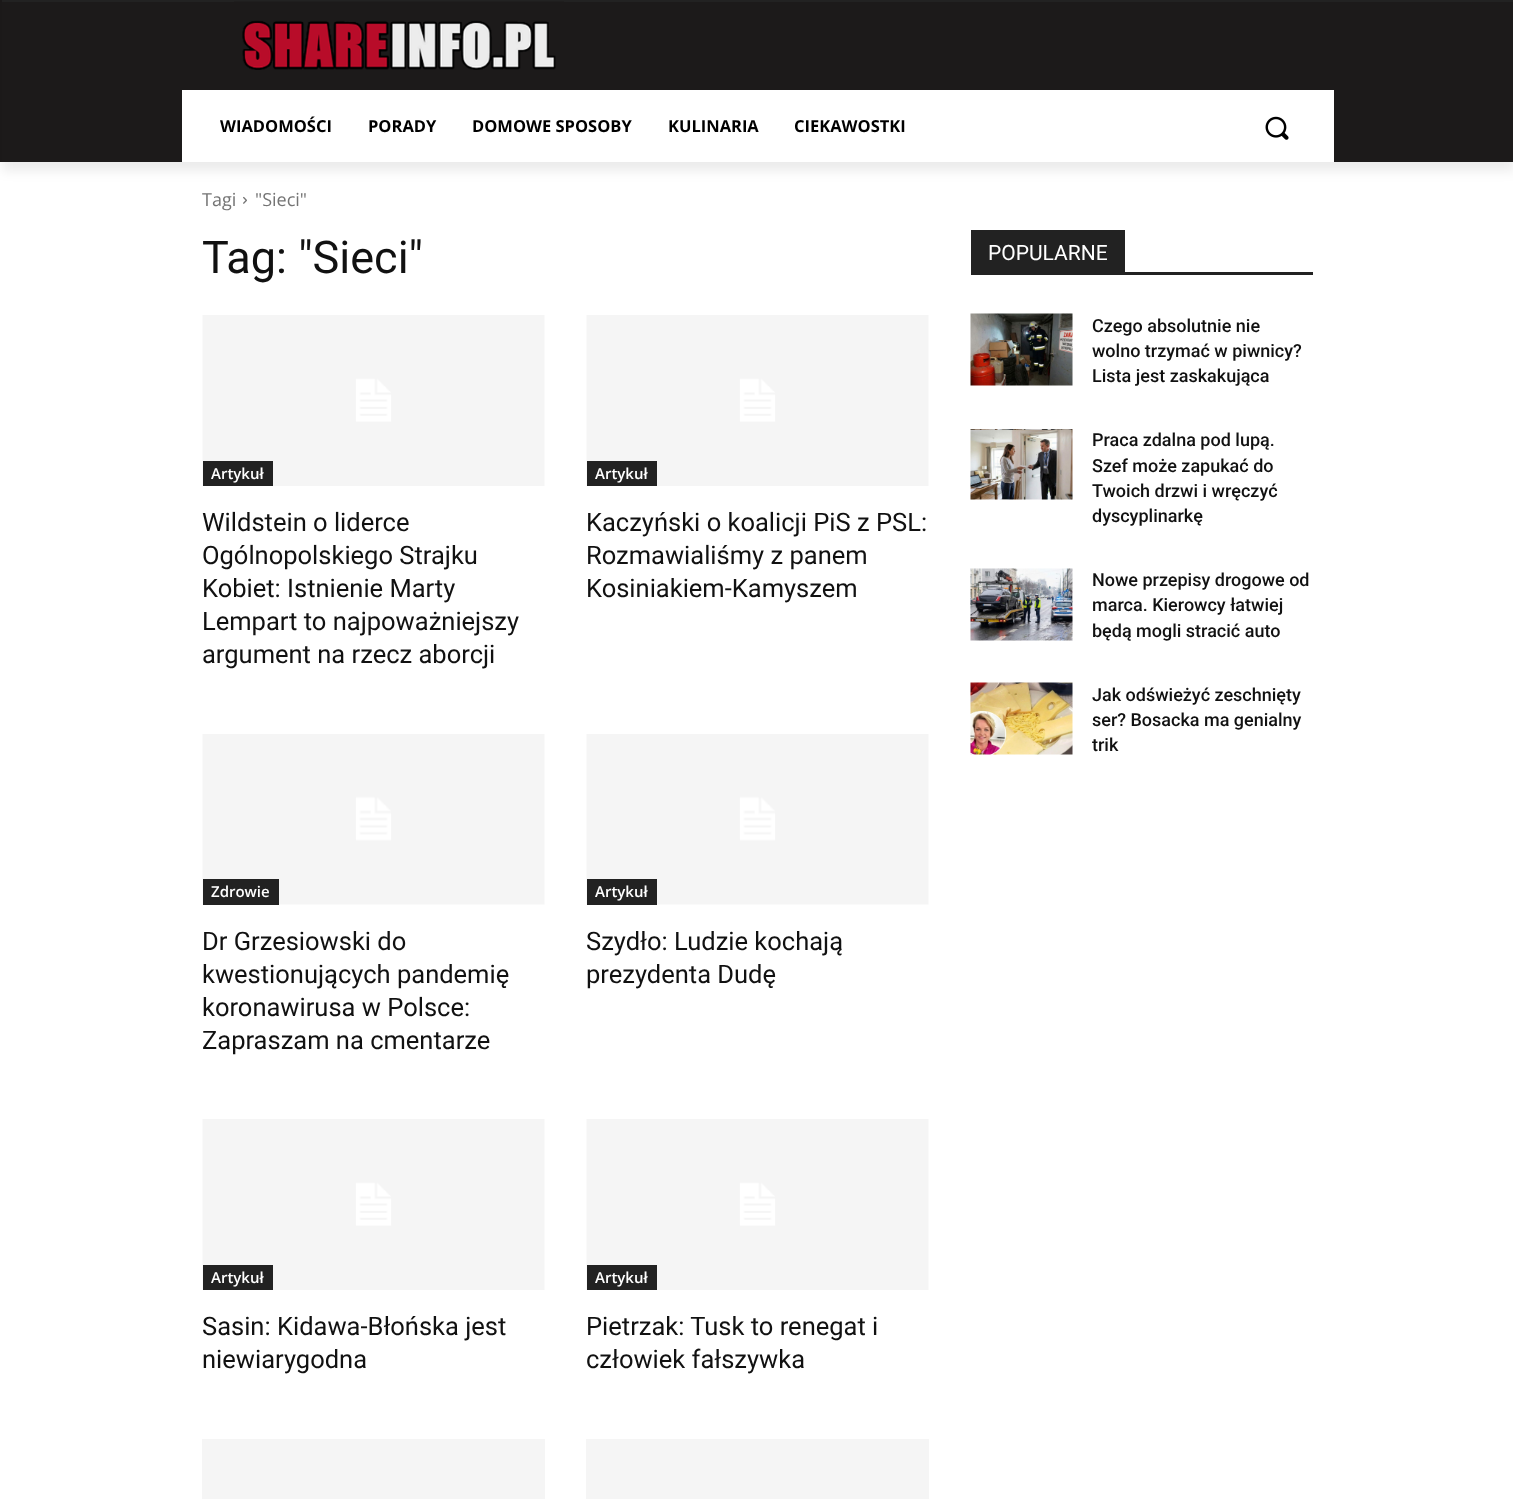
async function draw(canvas) {
  canvas.width = 1513
  canvas.height = 1499
  const ctx = canvas.getContext('2d')
  ctx.miterLimit = 4
  ctx.fontKerning = 'normal'
  async function loadImage(src) {
    const img = new Image()
    img.src = src
    await img.decode()
    return img
  }

  ctx.fillStyle = '#fff'
  ctx.fillRect(0, 0, 1513, 1499)
  ctx.fillStyle = '#1c1a1a'
  ctx.fillRect(0, 0, 1513, 162)
  ctx.fillStyle = '#222'
  ctx.fillRect(2, 0, 1511, 2)
  ctx.drawImage(await loadImage('image0.png'), 234, 1, 330, 69)
  ctx.fillStyle = '#fff'
  ctx.fillRect(182, 90, 1152, 72)
  ctx.save()
  ctx.beginPath()
  ctx.moveTo(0, 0)
  ctx.lineTo(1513, 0)
  ctx.lineTo(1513, 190)
  ctx.lineTo(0, 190)
  ctx.closePath()
  ctx.moveTo(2, 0)
  ctx.lineTo(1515, 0)
  ctx.lineTo(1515, 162)
  ctx.lineTo(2, 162)
  ctx.closePath()
  ctx.clip('evenodd')
  ctx.fillStyle = '#00000014'
  ctx.filter = 'blur(6px)'
  ctx.beginPath()
  ctx.rect(2, 9, 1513, 162)
  ctx.fill()
  ctx.filter = 'none'
  ctx.restore()
  ctx.font = 'bold 16.5px Open Sans'
  ctx.fillStyle = '#000'
  ctx.fillText('WIADOMOŚCI', 220, 132)
  ctx.fillText('PORADY', 368, 132)
  ctx.fillText('DOMOWE SPOSOBY', 472, 132)
  ctx.fillText('KULINARIA', 668, 132)
  ctx.fillText('CIEKAWOSTKI', 794, 132)
  ctx.drawImage(await loadImage('image1.png'), 1265, 116, 24, 24)
  ctx.font = '18px Open Sans'
  ctx.fillStyle = '#747474'
  ctx.fillText('Tagi', 202, 206)
  ctx.drawImage(await loadImage('image2.png'), 243, 196, 4, 8)
  ctx.fillText('"Sieci"', 255, 206)
  ctx.font = '45px Roboto'
  ctx.fillStyle = '#111'
  ctx.fillText('Tag: "Sieci"', 202, 273)
  ctx.drawImage(await loadImage('image3.png'), 202, 315, 343, 171)
  ctx.fillStyle = '#222'
  ctx.fillRect(203, 461, 70, 25)
  ctx.font = '600 15px Open Sans'
  ctx.fillStyle = '#fff'
  ctx.fillText('Artykuł', 211, 479)
  ctx.font = '25.5px Roboto'
  ctx.fillStyle = '#111'
  ctx.fillText('Wildstein o liderce', 202, 531)
  ctx.fillText('Ogólnopolskiego Strajku', 202, 564)
  ctx.fillText('Kobiet: Istnienie Marty', 202, 597)
  ctx.fillText('Lempart to najpoważniejszy', 202, 630)
  ctx.fillText('argument na rzecz aborcji', 202, 663)
  ctx.drawImage(await loadImage('image3.png'), 586, 315, 343, 171)
  ctx.fillStyle = '#222'
  ctx.fillRect(587, 461, 70, 25)
  ctx.font = '600 15px Open Sans'
  ctx.fillStyle = '#fff'
  ctx.fillText('Artykuł', 595, 479)
  ctx.font = '25.5px Roboto'
  ctx.fillStyle = '#111'
  ctx.fillText('Kaczyński o koalicji PiS z PSL:', 586, 531)
  ctx.fillText('Rozmawialiśmy z panem', 586, 564)
  ctx.fillText('Kosiniakiem-Kamyszem', 586, 597)
  ctx.drawImage(await loadImage('image4.png'), 202, 734, 343, 171)
  ctx.fillStyle = '#222'
  ctx.fillRect(203, 879, 76, 26)
  ctx.font = '600 15px Open Sans'
  ctx.fillStyle = '#fff'
  ctx.fillText('Zdrowie', 211, 897)
  ctx.font = '25.5px Roboto'
  ctx.fillStyle = '#111'
  ctx.fillText('Dr Grzesiowski do', 202, 950)
  ctx.fillText('kwestionujących pandemię', 202, 983)
  ctx.fillText('koronawirusa w Polsce:', 202, 1016)
  ctx.fillText('Zapraszam na cmentarze', 202, 1049)
  ctx.drawImage(await loadImage('image4.png'), 586, 734, 343, 171)
  ctx.fillStyle = '#222'
  ctx.fillRect(587, 879, 70, 26)
  ctx.font = '600 15px Open Sans'
  ctx.fillStyle = '#fff'
  ctx.fillText('Artykuł', 595, 897)
  ctx.font = '25.5px Roboto'
  ctx.fillStyle = '#111'
  ctx.fillText('Szydło: Ludzie kochają', 586, 950)
  ctx.fillText('prezydenta Dudę', 586, 983)
  ctx.drawImage(await loadImage('image3.png'), 202, 1119, 343, 171)
  ctx.fillStyle = '#222'
  ctx.fillRect(203, 1265, 70, 25)
  ctx.font = '600 15px Open Sans'
  ctx.fillStyle = '#fff'
  ctx.fillText('Artykuł', 211, 1283)
  ctx.font = '25.5px Roboto'
  ctx.fillStyle = '#111'
  ctx.fillText('Sasin: Kidawa-Błońska jest', 202, 1335)
  ctx.fillText('niewiarygodna', 202, 1368)
  ctx.drawImage(await loadImage('image3.png'), 586, 1119, 343, 171)
  ctx.fillStyle = '#222'
  ctx.fillRect(587, 1265, 70, 25)
  ctx.font = '600 15px Open Sans'
  ctx.fillStyle = '#fff'
  ctx.fillText('Artykuł', 595, 1283)
  ctx.font = '25.5px Roboto'
  ctx.fillStyle = '#111'
  ctx.fillText('Pietrzak: Tusk to renegat i', 586, 1335)
  ctx.fillText('człowiek fałszywka', 586, 1368)
  ctx.fillStyle = '#f5f5f5'
  ctx.fillRect(202, 1439, 343, 60)
  ctx.fillRect(586, 1439, 343, 60)
  ctx.fillStyle = '#222'
  ctx.fillRect(971, 272, 342, 3)
  ctx.fillRect(971, 230, 154, 42)
  ctx.font = '21px Roboto'
  ctx.fillStyle = '#fff'
  ctx.fillText('POPULARNE', 988, 260)
  ctx.drawImage(await loadImage('image5.png'), 970, 313, 103, 73)
  ctx.font = '500 18px Roboto'
  ctx.fillStyle = '#111'
  ctx.fillText('Czego absolutnie nie', 1092, 332)
  ctx.fillText('wolno trzymać w piwnicy?', 1092, 357)
  ctx.fillText('Lista jest zaskakująca', 1092, 382)
  ctx.drawImage(await loadImage('image6.png'), 970, 429, 103, 71)
  ctx.fillText('Praca zdalna pod lupą.', 1092, 446)
  ctx.fillText('Szef może zapukać do', 1092, 472)
  ctx.fillText('Twoich drzwi i wręczyć', 1092, 497)
  ctx.fillText('dyscyplinarkę', 1092, 522)
  ctx.drawImage(await loadImage('image7.png'), 970, 568, 103, 73)
  ctx.fillText('Nowe przepisy drogowe od', 1092, 586)
  ctx.fillText('marca. Kierowcy łatwiej', 1092, 611)
  ctx.fillText('będą mogli stracić auto', 1092, 637)
  ctx.drawImage(await loadImage('image8.png'), 970, 682, 103, 73)
  ctx.fillText('Jak odświeżyć zeschnięty', 1092, 701)
  ctx.fillText('ser? Bosacka ma genialny', 1092, 726)
  ctx.fillText('trik', 1092, 751)
}

draw(document.querySelector('canvas'))
